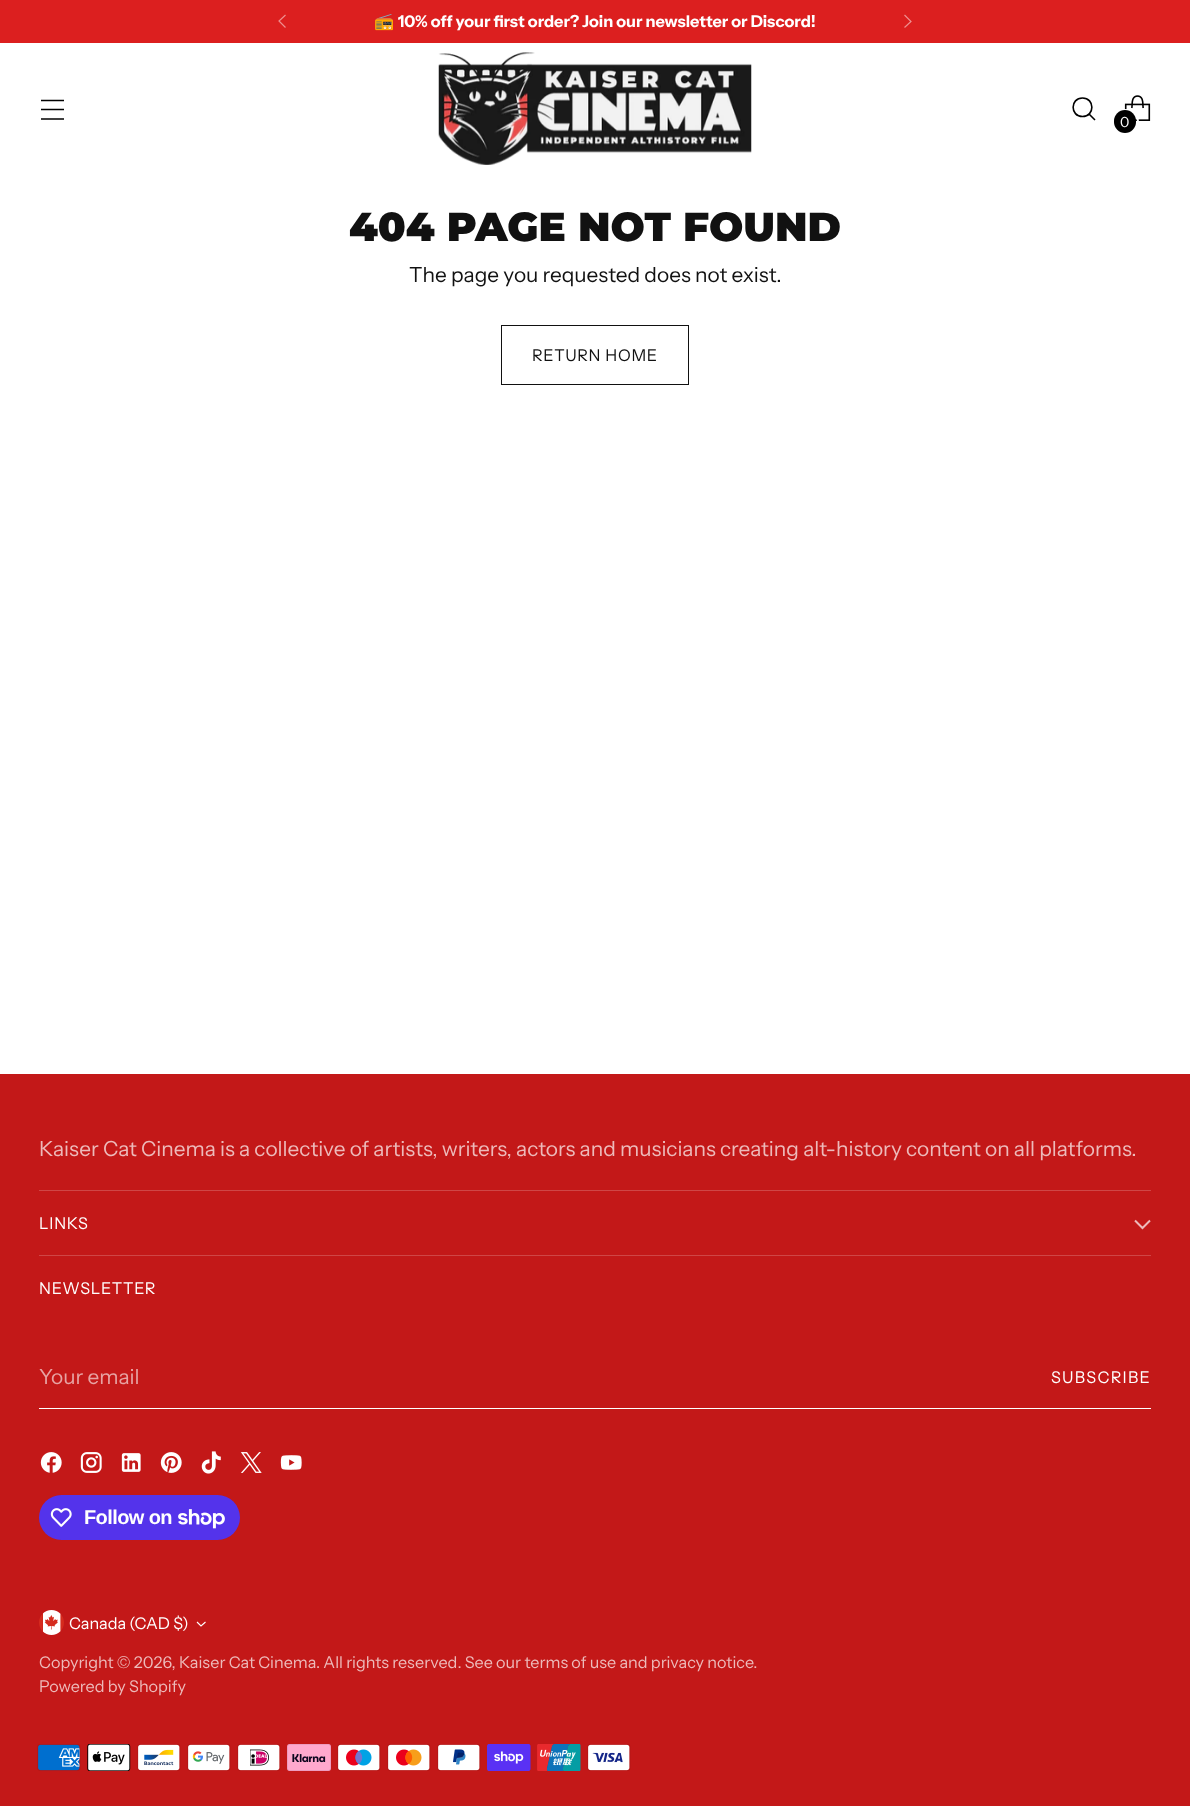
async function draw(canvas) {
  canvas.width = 1190
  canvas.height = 1806
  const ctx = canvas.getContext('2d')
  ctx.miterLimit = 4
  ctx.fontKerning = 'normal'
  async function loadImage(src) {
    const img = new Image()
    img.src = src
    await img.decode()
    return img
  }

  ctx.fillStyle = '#fff'
  ctx.fillRect(0, 0, 1190, 1806)
  ctx.fillStyle = '#dc1f1f'
  ctx.fillRect(0, 0, 1190, 43)
  ctx.font = 'bold 16.2px Noto Color Emoji'
  ctx.fillStyle = '#fff'
  ctx.fillText('📻', 374, 27)
  ctx.font = 'bold 16.2px Instrument Sans'
  ctx.fillText('10% off your first order? Join our newsletter or Discord!', 398, 27)
  ctx.beginPath()
  ctx.moveTo(285.5, 15)
  ctx.lineTo(279, 21)
  ctx.lineTo(285.5, 27.5)
  ctx.strokeStyle = '#ee8f8f'
  ctx.lineWidth = 1.2
  ctx.stroke()
  ctx.beginPath()
  ctx.moveTo(904.5, 27.5)
  ctx.lineTo(911, 21.5)
  ctx.lineTo(904.5, 15)
  ctx.stroke()
  ctx.beginPath()
  ctx.moveTo(41, 109.5)
  ctx.lineTo(64, 109.5)
  ctx.moveTo(41, 100.5)
  ctx.lineTo(64, 100.5)
  ctx.moveTo(41, 119)
  ctx.lineTo(64, 119)
  ctx.strokeStyle = '#000'
  ctx.lineWidth = 1.6
  ctx.stroke()
  ctx.drawImage(await loadImage('image0.png'), 438, 52, 314, 113)
  ctx.beginPath()
  ctx.moveTo(1082.5, 116.5)
  ctx.bezierCurveTo(1095, 116.5, 1095, 98, 1082.5, 98)
  ctx.bezierCurveTo(1070, 98, 1070, 116.5, 1082.5, 116.5)
  ctx.closePath()
  ctx.lineCap = 'round'
  ctx.stroke()
  ctx.beginPath()
  ctx.moveTo(1089, 114)
  ctx.lineTo(1095, 120)
  ctx.lineCap = 'butt'
  ctx.stroke()
  ctx.drawImage(await loadImage('image1.png'), 1124, 95, 27, 26)
  ctx.beginPath()
  ctx.arc(1126, 122, 12, 0, 2 * Math.PI)
  ctx.strokeStyle = '#fff'
  ctx.lineWidth = 2
  ctx.stroke()
  ctx.fillStyle = '#000'
  ctx.beginPath()
  ctx.roundRect(1114, 110, 22, 23, 11)
  ctx.fill()
  ctx.font = '14px Instrument Sans'
  ctx.fillStyle = '#fff'
  ctx.fillText('0', 1120, 127)
  ctx.font = '900 40.5px Montserrat'
  ctx.fillStyle = '#111'
  ctx.fillText('404 PAGE NOT FOUND', 349, 241)
  ctx.font = '20.85px Instrument Sans'
  ctx.fillText('The page you requested does not exist.', 409, 282)
  ctx.strokeStyle = '#111'
  ctx.lineWidth = 1
  ctx.strokeRect(501.5, 325.5, 187, 59)
  ctx.letterSpacing = '0.75px'
  ctx.font = '16.2px Instrument Sans'
  ctx.fillText('RETURN HOME', 532, 361)
  ctx.fillStyle = '#c31818'
  ctx.fillRect(0, 1074, 1190, 732)
  ctx.fillStyle = '#cf4646'
  ctx.fillRect(39, 1190, 1112, 1)
  ctx.letterSpacing = '0px'
  ctx.font = '20.85px Instrument Sans'
  ctx.fillStyle = '#edbaba'
  ctx.fillText('Kaiser Cat Cinema is a collective of artists, writers, actors and musicians creating alt-history content on all platforms.', 39, 1156)
  ctx.fillStyle = '#cf4646'
  ctx.fillRect(39, 1255, 1112, 1)
  ctx.letterSpacing = '0.75px'
  ctx.font = '16.2px Instrument Sans'
  ctx.fillStyle = '#fff'
  ctx.fillText('LINKS', 39, 1229)
  ctx.beginPath()
  ctx.moveTo(1135, 1220.5)
  ctx.lineTo(1142.5, 1228)
  ctx.lineTo(1150, 1220.5)
  ctx.strokeStyle = '#edbaba'
  ctx.lineWidth = 2
  ctx.stroke()
  ctx.fillText('NEWSLETTER', 39, 1294)
  ctx.fillRect(39, 1408, 1112, 1)
  ctx.letterSpacing = '0px'
  ctx.font = '20.85px Instrument Sans'
  ctx.fillStyle = '#e7a3a3'
  ctx.fillText('Your email', 39, 1384)
  ctx.letterSpacing = '1.25px'
  ctx.font = '16.2px Instrument Sans'
  ctx.fillStyle = '#fff'
  ctx.fillText('SUBSCRIBE', 1051, 1383)
  ctx.drawImage(await loadImage('image2.png'), 40, 1452, 22, 21)
  ctx.drawImage(await loadImage('image3.png'), 80, 1452, 22, 21)
  ctx.drawImage(await loadImage('image4.png'), 121, 1453, 20, 19)
  ctx.drawImage(await loadImage('image5.png'), 160, 1452, 22, 21)
  ctx.drawImage(await loadImage('image6.png'), 201, 1451, 20, 23)
  ctx.drawImage(await loadImage('image7.png'), 240, 1452, 22, 21)
  ctx.drawImage(await loadImage('image8.png'), 280, 1455, 22, 15)
  ctx.fillStyle = '#5433eb'
  ctx.beginPath()
  ctx.roundRect(39, 1495, 201, 45, 22.5)
  ctx.fill()
  ctx.drawImage(await loadImage('image9.png'), 50, 1508, 22, 19)
  ctx.letterSpacing = '-0.6px'
  ctx.font = 'bold 20px Liberation Sans'
  ctx.fillStyle = '#fff'
  ctx.fillText('Follow on', 84, 1524)
  ctx.drawImage(await loadImage('image10.png'), 178, 1509, 47, 20)
  ctx.drawImage(await loadImage('image11.png'), 39, 1610, 25, 25)
  ctx.letterSpacing = '0px'
  ctx.font = '16.2px Instrument Sans'
  ctx.fillText('Canada (CAD $)', 69, 1629)
  ctx.beginPath()
  ctx.moveTo(197, 1622)
  ctx.lineTo(201, 1626)
  ctx.lineTo(205.5, 1622)
  ctx.strokeStyle = '#fff'
  ctx.lineWidth = 1.1
  ctx.stroke()
  ctx.fillStyle = '#edbaba'
  ctx.fillText('Copyright © 2026,', 39, 1668)
  ctx.fillText('Kaiser Cat Cinema', 179, 1668)
  ctx.fillText('. All rights reserved. See our terms of use and privacy notice.', 316, 1668)
  ctx.fillText('Powered by Shopify', 39, 1692)
  ctx.drawImage(await loadImage('image12.png'), 37, 1744, 44, 27)
  ctx.drawImage(await loadImage('image13.png'), 87, 1744, 44, 27)
  ctx.drawImage(await loadImage('image14.png'), 137, 1744, 44, 27)
  ctx.drawImage(await loadImage('image15.png'), 187, 1744, 44, 27)
  ctx.drawImage(await loadImage('image16.png'), 237, 1744, 44, 27)
  ctx.drawImage(await loadImage('image17.png'), 287, 1744, 44, 27)
  ctx.drawImage(await loadImage('image18.png'), 337, 1744, 44, 27)
  ctx.drawImage(await loadImage('image19.png'), 387, 1744, 44, 27)
  ctx.drawImage(await loadImage('image20.png'), 437, 1744, 44, 27)
  ctx.drawImage(await loadImage('image21.png'), 487, 1744, 44, 27)
  ctx.drawImage(await loadImage('image22.png'), 537, 1744, 44, 27)
  ctx.drawImage(await loadImage('image23.png'), 587, 1744, 44, 27)
}

draw(document.querySelector('canvas'))
